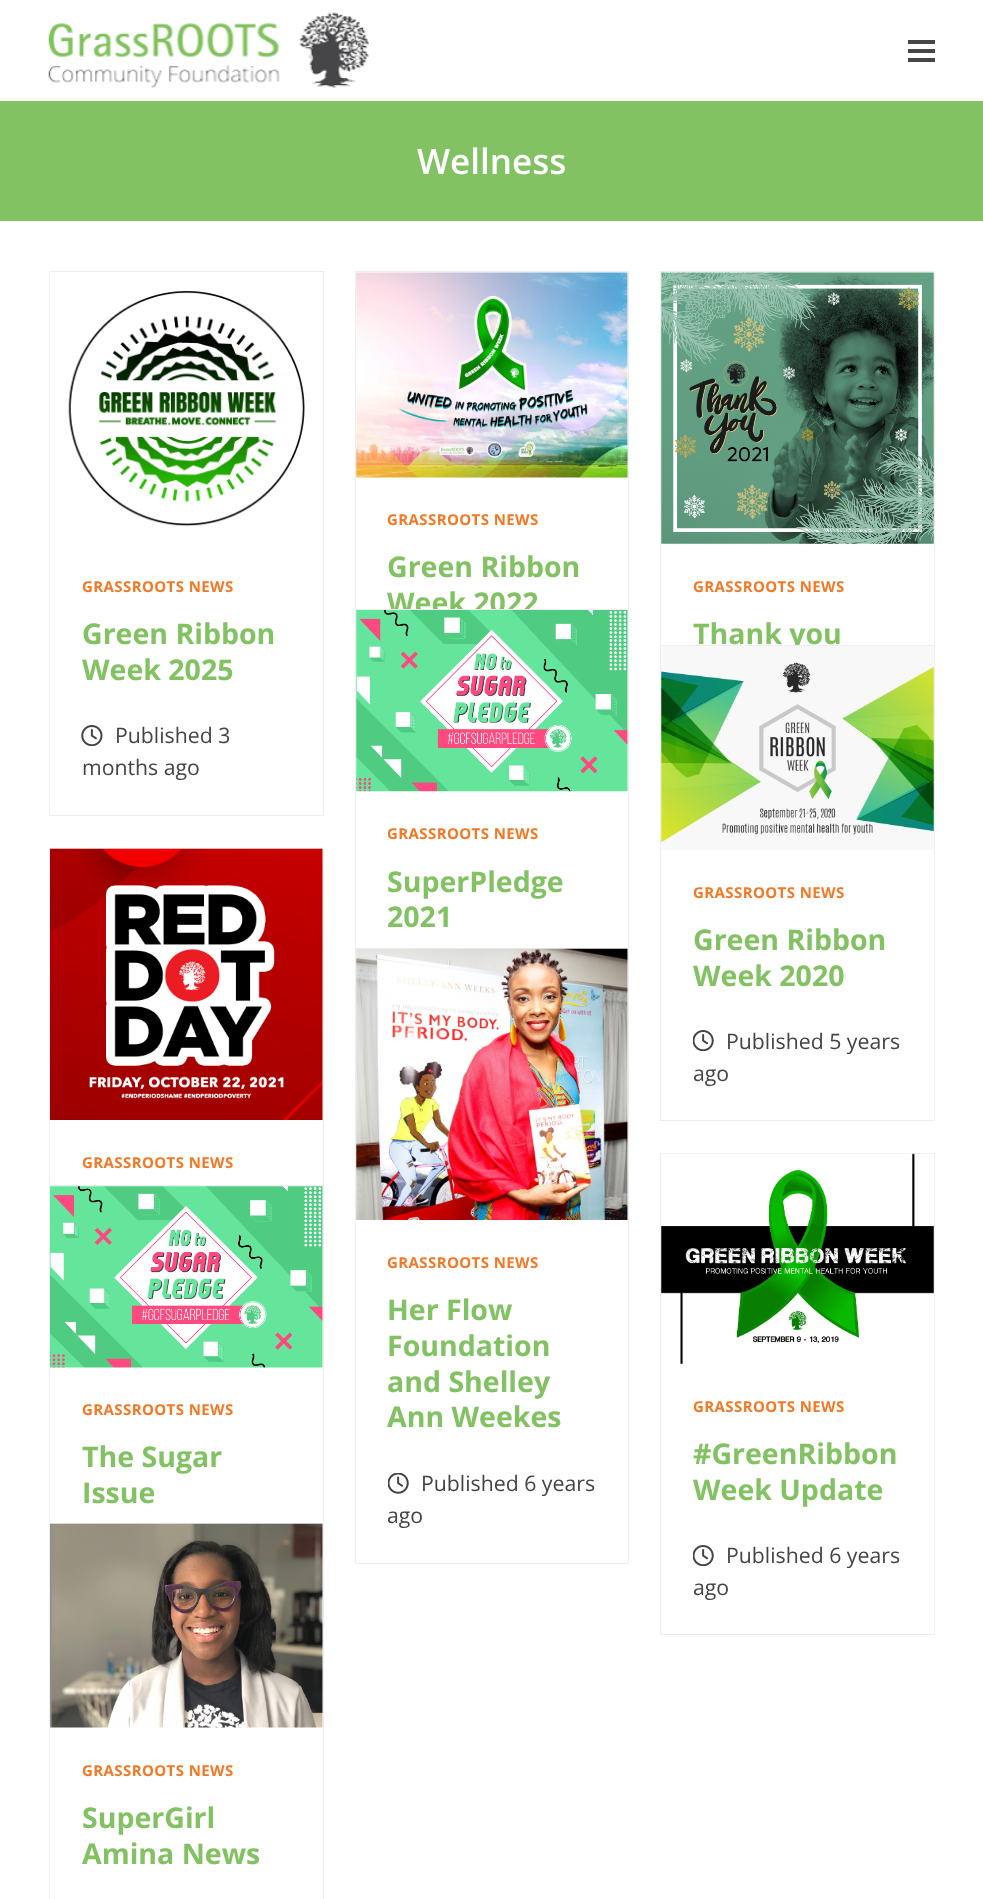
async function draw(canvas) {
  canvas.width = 983
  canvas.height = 1899
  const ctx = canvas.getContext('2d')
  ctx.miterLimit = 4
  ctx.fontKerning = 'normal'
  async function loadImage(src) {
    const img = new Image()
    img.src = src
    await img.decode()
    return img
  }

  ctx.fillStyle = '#fff'
  ctx.fillRect(0, 0, 983, 1899)
  ctx.drawImage(await loadImage('image0.png'), 48, 12, 321, 76)
  ctx.fillStyle = '#464648'
  ctx.fillRect(908, 49, 27, 4)
  ctx.fillRect(908, 40, 27, 4)
  ctx.fillRect(908, 58, 27, 4)
  ctx.fillStyle = '#82c262'
  ctx.fillRect(0, 101, 983, 120)
  ctx.font = '600 35px Open Sans'
  ctx.fillStyle = '#fff'
  ctx.fillText('Wellness', 417, 174)
  ctx.strokeStyle = '#eee'
  ctx.strokeRect(355.5, 271.5, 273, 477)
  ctx.drawImage(await loadImage('image1.png'), 356, 272, 272, 206)
  ctx.letterSpacing = '0.4px'
  ctx.font = 'bold 15px Open Sans'
  ctx.fillStyle = '#f47926'
  ctx.fillText('GRASSROOTS NEWS', 387, 525)
  ctx.letterSpacing = '0px'
  ctx.font = 'bold 28.5px Open Sans'
  ctx.fillStyle = '#82c262'
  ctx.fillText('Green Ribbon', 387, 577)
  ctx.fillText('Week 2022', 387, 613)
  ctx.strokeRect(49.5, 271.5, 274, 544)
  ctx.drawImage(await loadImage('image2.png'), 68, 291, 237, 235)
  ctx.letterSpacing = '0.4px'
  ctx.font = 'bold 15px Open Sans'
  ctx.fillStyle = '#f47926'
  ctx.fillText('GRASSROOTS NEWS', 82, 592)
  ctx.letterSpacing = '0px'
  ctx.font = 'bold 28.5px Open Sans'
  ctx.fillStyle = '#82c262'
  ctx.fillText('Green Ribbon', 82, 644)
  ctx.fillText('Week 2025', 82, 680)
  ctx.drawImage(await loadImage('image3.png'), 81, 725, 22, 21)
  ctx.font = '21.25px Open Sans'
  ctx.fillStyle = '#444'
  ctx.fillText('Published 3', 115, 743)
  ctx.fillText('months ago', 82, 775)
  ctx.strokeRect(660.5, 271.5, 274, 579)
  ctx.drawImage(await loadImage('image4.png'), 661, 272, 273, 272)
  ctx.letterSpacing = '0.4px'
  ctx.font = 'bold 15px Open Sans'
  ctx.fillStyle = '#f47926'
  ctx.fillText('GRASSROOTS NEWS', 693, 592)
  ctx.letterSpacing = '0px'
  ctx.font = 'bold 28.5px Open Sans'
  ctx.fillStyle = '#82c262'
  ctx.fillText('Thank you', 693, 644)
  ctx.fillStyle = '#fff'
  ctx.fillRect(356, 610, 272, 139)
  ctx.strokeRect(355.5, 609.5, 273, 454)
  ctx.drawImage(await loadImage('image5.png'), 356, 610, 272, 182)
  ctx.letterSpacing = '0.4px'
  ctx.font = 'bold 15px Open Sans'
  ctx.fillStyle = '#f47926'
  ctx.fillText('GRASSROOTS NEWS', 387, 839)
  ctx.letterSpacing = '0px'
  ctx.font = 'bold 28.5px Open Sans'
  ctx.fillStyle = '#82c262'
  ctx.fillText('SuperPledge', 387, 892)
  ctx.fillText('2021', 387, 927)
  ctx.fillStyle = '#fff'
  ctx.fillRect(661, 646, 273, 205)
  ctx.strokeRect(660.5, 645.5, 274, 475)
  ctx.drawImage(await loadImage('image6.png'), 661, 646, 273, 204)
  ctx.letterSpacing = '0.4px'
  ctx.font = 'bold 15px Open Sans'
  ctx.fillStyle = '#f47926'
  ctx.fillText('GRASSROOTS NEWS', 693, 898)
  ctx.letterSpacing = '0px'
  ctx.font = 'bold 28.5px Open Sans'
  ctx.fillStyle = '#82c262'
  ctx.fillText('Green Ribbon', 693, 950)
  ctx.fillText('Week 2020', 693, 986)
  ctx.drawImage(await loadImage('image7.png'), 693, 1030, 21, 21)
  ctx.font = '21.25px Open Sans'
  ctx.fillStyle = '#444'
  ctx.fillText('Published 5 years', 726, 1049)
  ctx.fillText('ago', 693, 1081)
  ctx.strokeRect(49.5, 848.5, 274, 542)
  ctx.drawImage(await loadImage('image8.png'), 50, 848, 273, 272)
  ctx.letterSpacing = '0.4px'
  ctx.font = 'bold 15px Open Sans'
  ctx.fillStyle = '#f47926'
  ctx.fillText('GRASSROOTS NEWS', 82, 1168)
  ctx.fillStyle = '#fff'
  ctx.fillRect(50, 1390, 273, 1)
  ctx.strokeRect(49.5, 1185.5, 274, 453)
  ctx.drawImage(await loadImage('image9.png'), 50, 1186, 273, 182)
  ctx.fillStyle = '#f47926'
  ctx.fillText('GRASSROOTS NEWS', 82, 1415)
  ctx.letterSpacing = '0px'
  ctx.font = 'bold 28.5px Open Sans'
  ctx.fillStyle = '#82c262'
  ctx.fillText('The Sugar', 82, 1467)
  ctx.fillText('Issue', 82, 1503)
  ctx.fillStyle = '#fff'
  ctx.fillRect(356, 1063, 272, 1)
  ctx.strokeRect(355.5, 948.5, 273, 615)
  ctx.drawImage(await loadImage('image10.png'), 356, 948, 272, 272)
  ctx.letterSpacing = '0.4px'
  ctx.font = 'bold 15px Open Sans'
  ctx.fillStyle = '#f47926'
  ctx.fillText('GRASSROOTS NEWS', 387, 1268)
  ctx.letterSpacing = '0px'
  ctx.font = 'bold 28.5px Open Sans'
  ctx.fillStyle = '#82c262'
  ctx.fillText('Her Flow', 387, 1320)
  ctx.fillText('Foundation', 387, 1356)
  ctx.fillText('and Shelley', 387, 1392)
  ctx.fillText('Ann Weekes', 387, 1427)
  ctx.drawImage(await loadImage('image11.png'), 388, 1473, 21, 21)
  ctx.font = '21.25px Open Sans'
  ctx.fillStyle = '#444'
  ctx.fillText('Published 6 years', 421, 1491)
  ctx.fillText('ago', 387, 1523)
  ctx.strokeRect(660.5, 1153.5, 274, 481)
  ctx.drawImage(await loadImage('image12.png'), 661, 1153, 273, 211)
  ctx.letterSpacing = '0.4px'
  ctx.font = 'bold 15px Open Sans'
  ctx.fillStyle = '#f47926'
  ctx.fillText('GRASSROOTS NEWS', 693, 1412)
  ctx.letterSpacing = '0px'
  ctx.font = 'bold 28.5px Open Sans'
  ctx.fillStyle = '#82c262'
  ctx.fillText('#GreenRibbon', 693, 1464)
  ctx.fillText('Week Update', 693, 1500)
  ctx.drawImage(await loadImage('image7.png'), 693, 1545, 21, 21)
  ctx.font = '21.25px Open Sans'
  ctx.fillStyle = '#444'
  ctx.fillText('Published 6 years', 726, 1563)
  ctx.fillText('ago', 693, 1595)
  ctx.fillStyle = '#fff'
  ctx.fillRect(50, 1638, 273, 1)
  ctx.strokeRect(49.5, 1523.5, 274, 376)
  ctx.drawImage(await loadImage('image13.png'), 50, 1523, 273, 205)
  ctx.letterSpacing = '0.4px'
  ctx.font = 'bold 15px Open Sans'
  ctx.fillStyle = '#f47926'
  ctx.fillText('GRASSROOTS NEWS', 82, 1776)
  ctx.letterSpacing = '0px'
  ctx.font = 'bold 28.5px Open Sans'
  ctx.fillStyle = '#82c262'
  ctx.fillText('SuperGirl', 82, 1828)
  ctx.fillText('Amina News', 82, 1864)
}

draw(document.querySelector('canvas'))
